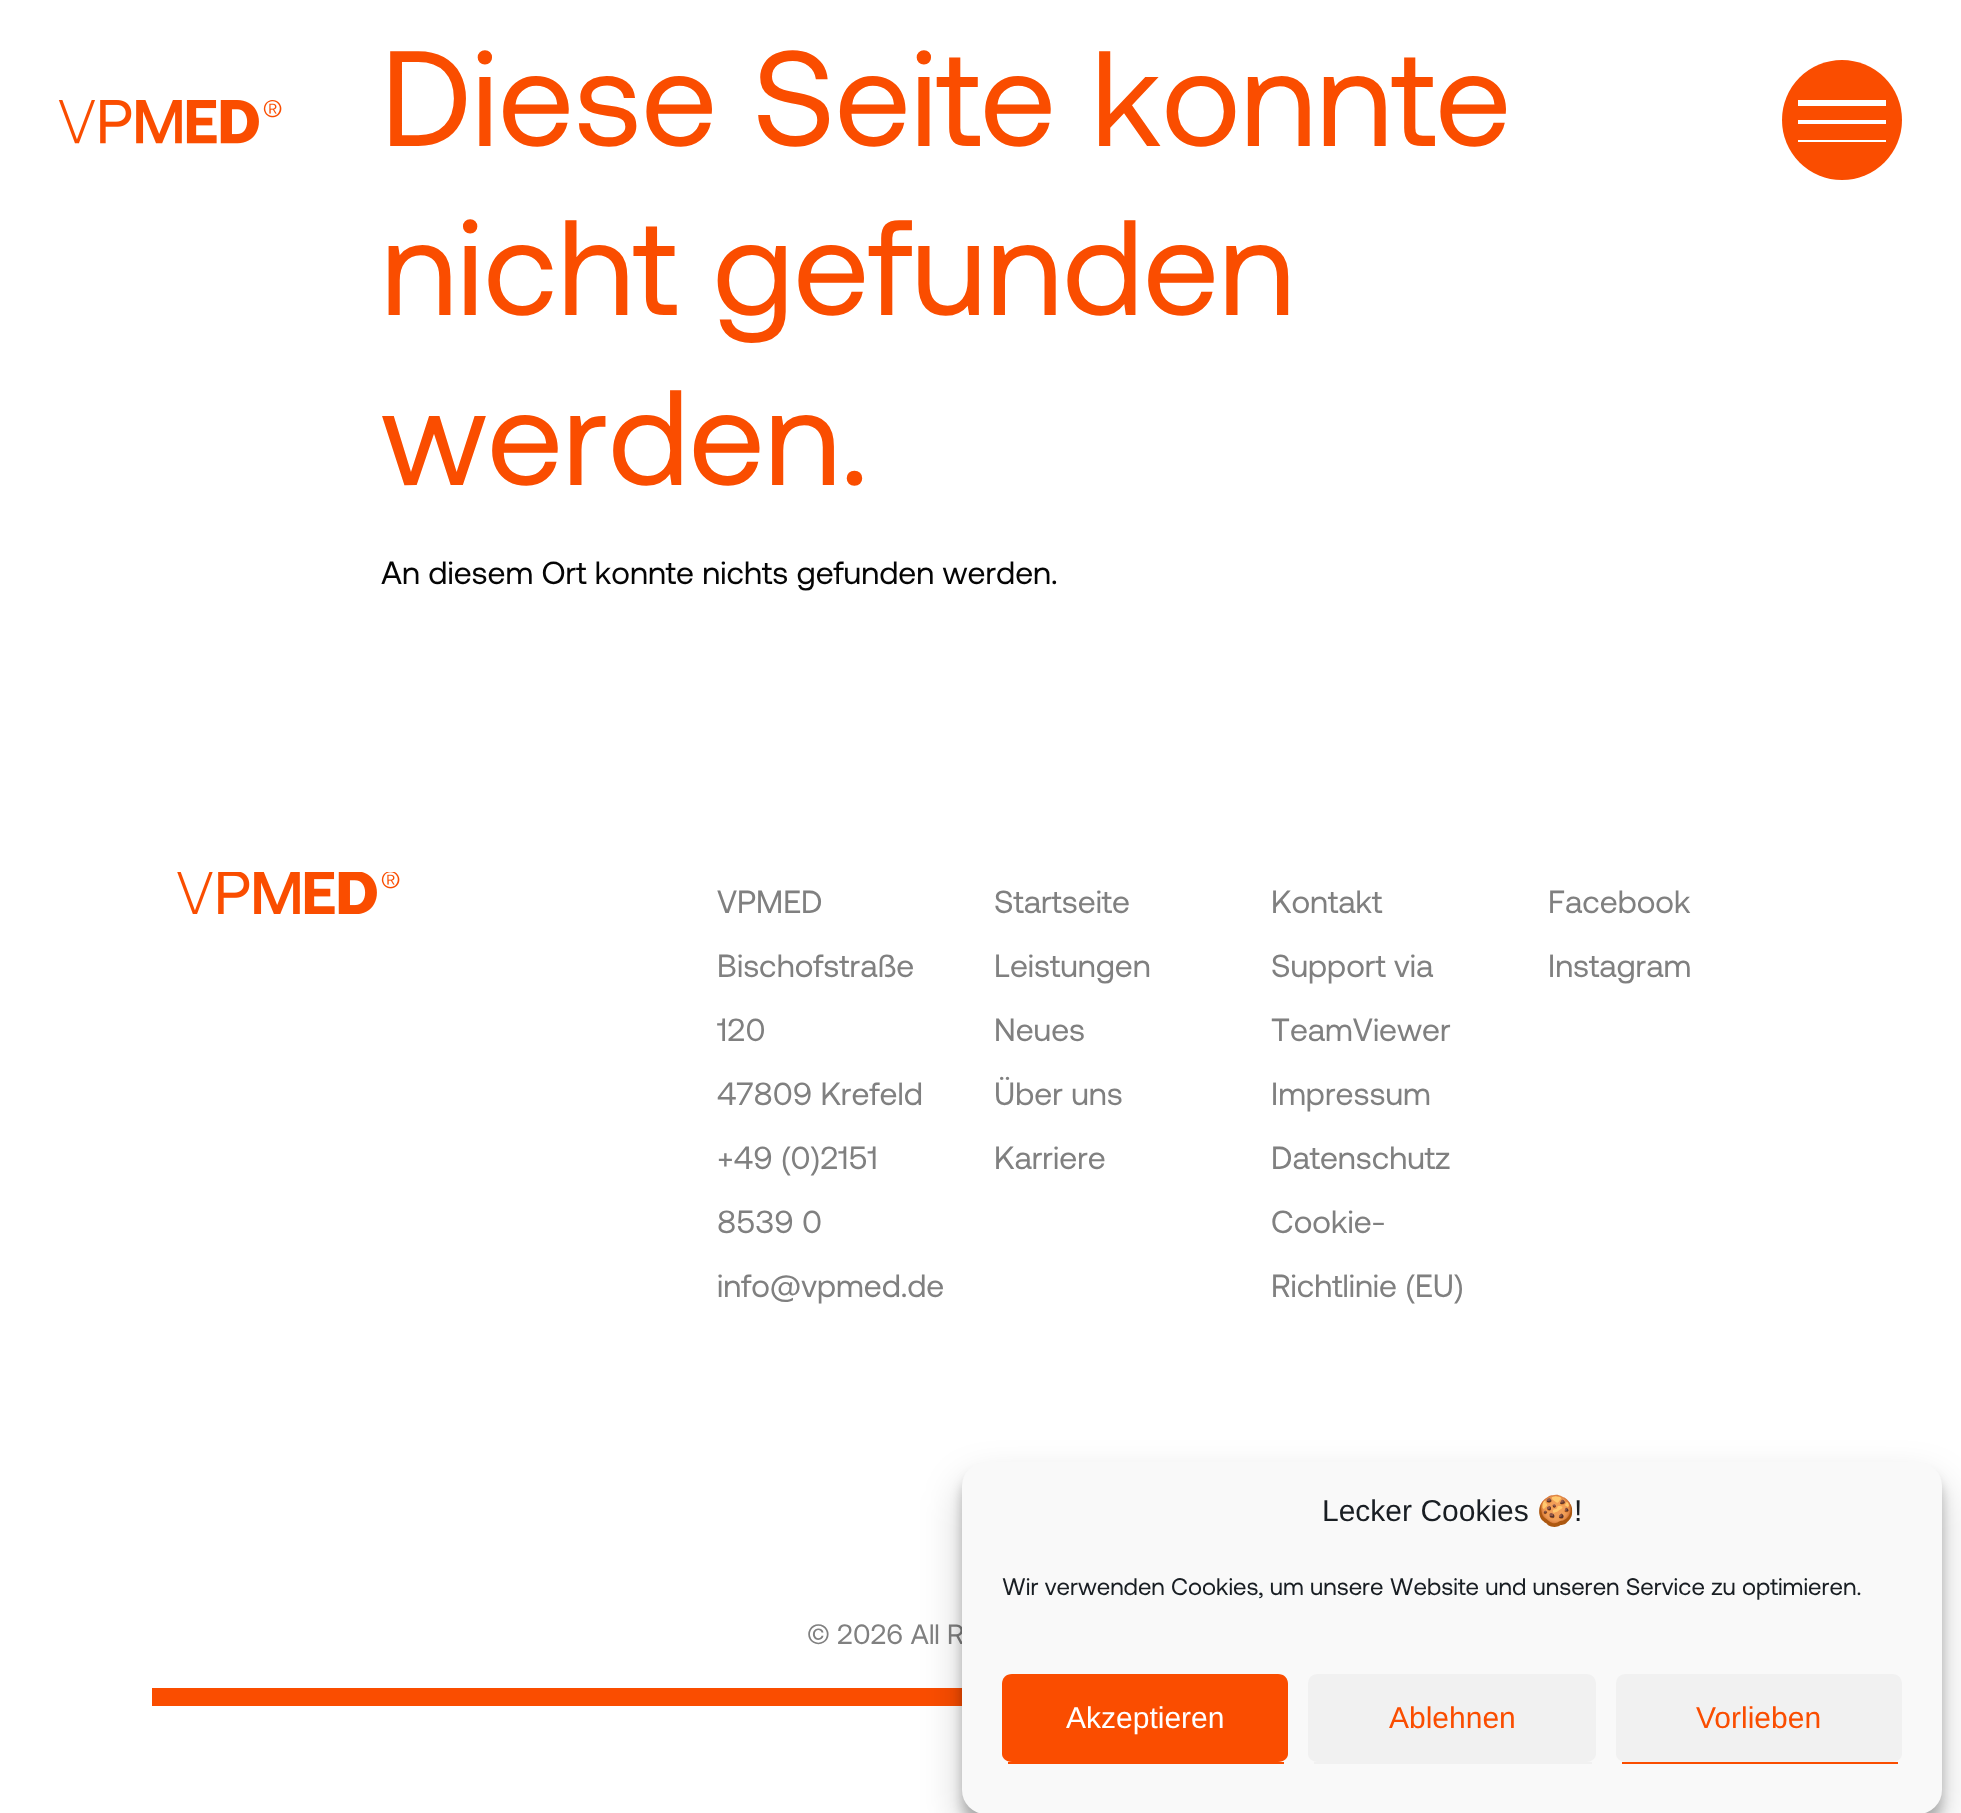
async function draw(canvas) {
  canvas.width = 1961
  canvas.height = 1813
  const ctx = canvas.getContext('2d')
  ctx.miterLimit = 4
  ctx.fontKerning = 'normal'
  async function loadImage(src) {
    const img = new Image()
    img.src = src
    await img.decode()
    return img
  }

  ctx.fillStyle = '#fff'
  ctx.fillRect(0, 0, 1961, 1813)
  ctx.font = '135.5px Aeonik'
  ctx.fillStyle = '#fa4d00'
  ctx.fillText('Diese Seite konnte', 381, 146)
  ctx.fillText('nicht gefunden', 381, 315)
  ctx.fillText('werden.', 381, 485)
  ctx.font = '32px Aeonik'
  ctx.fillStyle = '#050505'
  ctx.fillText('An diesem Ort konnte nichts gefunden werden.', 381, 584)
  ctx.drawImage(await loadImage('image0.png'), 58, 100, 224, 44)
  ctx.fillStyle = '#fa4d00'
  ctx.beginPath()
  ctx.arc(1842, 120, 60, 0, 2 * Math.PI)
  ctx.fill()
  ctx.fillStyle = '#fff'
  ctx.fillRect(1798, 100, 88, 6)
  ctx.fillRect(1798, 120, 88, 4)
  ctx.fillRect(1798, 140, 88, 2)
  ctx.drawImage(await loadImage('image1.png'), 177, 872, 223, 42)
  ctx.fillStyle = '#808080'
  ctx.fillText('VPMED', 717, 913)
  ctx.fillText('Bischofstraße', 717, 977)
  ctx.fillText('120', 717, 1041)
  ctx.fillText('47809 Krefeld', 717, 1105)
  ctx.fillText('+49 (0)2151', 717, 1169)
  ctx.fillText('8539 0', 717, 1233)
  ctx.fillText('info@vpmed.de', 717, 1297)
  ctx.fillText('Startseite', 994, 913)
  ctx.fillText('Leistungen', 994, 977)
  ctx.fillText('Neues', 994, 1041)
  ctx.fillText('Über uns', 994, 1105)
  ctx.fillText('Karriere', 994, 1169)
  ctx.fillText('Kontakt', 1271, 913)
  ctx.fillText('Support via', 1271, 977)
  ctx.fillText('TeamViewer', 1271, 1041)
  ctx.fillText('Impressum', 1271, 1105)
  ctx.fillText('Datenschutz', 1271, 1169)
  ctx.fillText('Cookie-', 1271, 1233)
  ctx.fillText('Richtlinie (EU)', 1271, 1297)
  ctx.fillText('Facebook', 1548, 913)
  ctx.fillText('Instagram', 1548, 977)
  ctx.fillStyle = '#fa4d00'
  ctx.fillRect(152, 1688, 810, 18)
  ctx.font = '28px Aeonik'
  ctx.fillStyle = '#808080'
  ctx.fillText('© 2026 All R', 807, 1644)
  ctx.fillStyle = '#0000003b'
  ctx.filter = 'blur(6px)'
  ctx.beginPath()
  ctx.roundRect(962, 1474, 980, 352, 24)
  ctx.fill()
  ctx.filter = 'none'
  ctx.fillStyle = '#00000030'
  ctx.filter = 'blur(20px)'
  ctx.beginPath()
  ctx.roundRect(962, 1482, 980, 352, 24)
  ctx.fill()
  ctx.filter = 'none'
  ctx.fillStyle = '#f9f9f9'
  ctx.beginPath()
  ctx.roundRect(962, 1462, 980, 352, 24)
  ctx.fill()
  ctx.font = '30px Liberation Sans'
  ctx.fillStyle = '#191e23'
  ctx.fillText('Lecker Cookies', 1322, 1521)
  ctx.font = '30px Noto Color Emoji'
  ctx.fillText('🍪', 1537, 1521)
  ctx.font = '30px Liberation Sans'
  ctx.fillText('!', 1574, 1521)
  ctx.font = '24px Aeonik'
  ctx.fillText('Wir verwenden Cookies, um unsere Website und unseren Service zu optimieren.', 1002, 1595)
  ctx.fillStyle = '#fa4d00'
  ctx.beginPath()
  ctx.moveTo(1012, 1674)
  ctx.lineTo(1278, 1674)
  ctx.bezierCurveTo(1284, 1674, 1288, 1678, 1288, 1684)
  ctx.lineTo(1288, 1754)
  ctx.bezierCurveTo(1288, 1758, 1284, 1762, 1278, 1762)
  ctx.lineTo(1012, 1762)
  ctx.bezierCurveTo(1006, 1762, 1002, 1758, 1002, 1754)
  ctx.lineTo(1002, 1684)
  ctx.bezierCurveTo(1002, 1678, 1006, 1674, 1012, 1674)
  ctx.closePath()
  ctx.fill()
  ctx.fillRect(1008, 1762, 276, 2)
  ctx.font = '30px Liberation Sans'
  ctx.fillStyle = '#fff'
  ctx.fillText('Akzeptieren', 1066, 1728)
  ctx.fillStyle = '#f1f1f1'
  ctx.beginPath()
  ctx.moveTo(1318, 1674)
  ctx.lineTo(1586, 1674)
  ctx.bezierCurveTo(1592, 1674, 1596, 1678, 1596, 1684)
  ctx.lineTo(1596, 1754)
  ctx.bezierCurveTo(1596, 1758, 1592, 1762, 1586, 1762)
  ctx.lineTo(1318, 1762)
  ctx.bezierCurveTo(1312, 1762, 1308, 1758, 1308, 1754)
  ctx.lineTo(1308, 1684)
  ctx.bezierCurveTo(1308, 1678, 1312, 1674, 1318, 1674)
  ctx.closePath()
  ctx.fill()
  ctx.fillRect(1314, 1762, 278, 2)
  ctx.fillStyle = '#fa4d00'
  ctx.fillText('Ablehnen', 1389, 1728)
  ctx.fillStyle = '#f1f1f1'
  ctx.beginPath()
  ctx.moveTo(1626, 1674)
  ctx.lineTo(1892, 1674)
  ctx.bezierCurveTo(1898, 1674, 1902, 1678, 1902, 1684)
  ctx.lineTo(1902, 1754)
  ctx.bezierCurveTo(1902, 1758, 1898, 1762, 1892, 1762)
  ctx.lineTo(1626, 1762)
  ctx.bezierCurveTo(1620, 1762, 1616, 1758, 1616, 1754)
  ctx.lineTo(1616, 1684)
  ctx.bezierCurveTo(1616, 1678, 1620, 1674, 1626, 1674)
  ctx.closePath()
  ctx.fill()
  ctx.fillStyle = '#fa4d00'
  ctx.fillRect(1622, 1762, 276, 2)
  ctx.fillText('Vorlieben', 1696, 1728)
}

draw(document.querySelector('canvas'))
